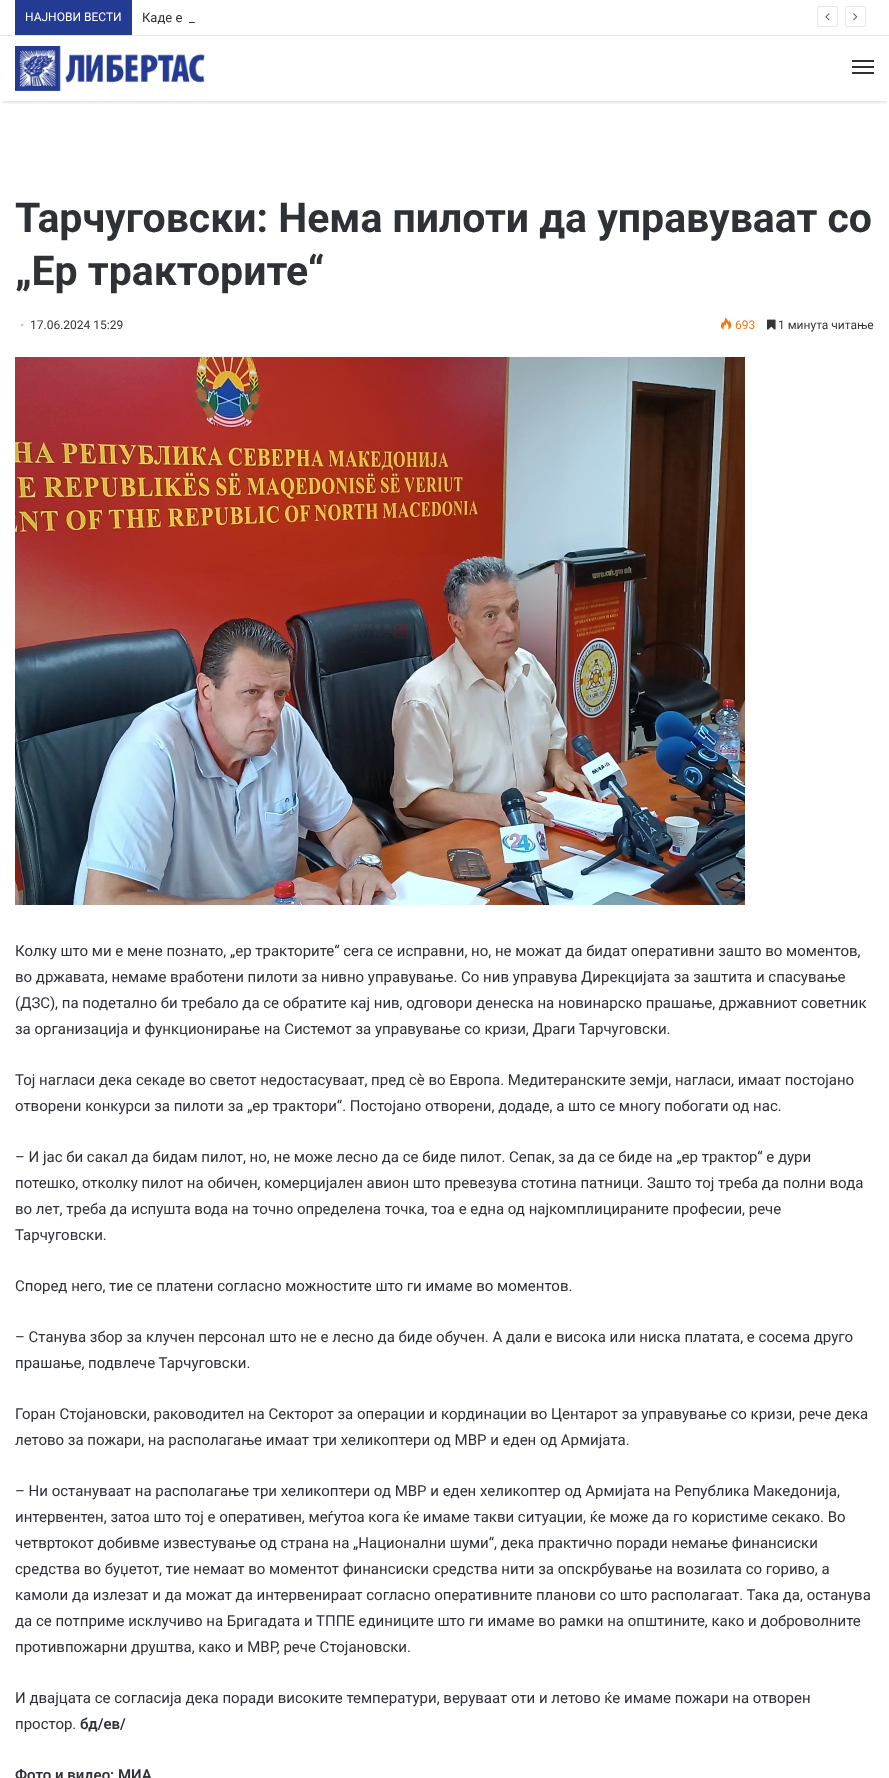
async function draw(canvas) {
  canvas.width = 889
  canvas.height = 1778
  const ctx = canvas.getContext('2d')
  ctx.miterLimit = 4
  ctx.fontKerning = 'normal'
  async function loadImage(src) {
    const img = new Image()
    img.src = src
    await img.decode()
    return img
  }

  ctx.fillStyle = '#fff'
  ctx.fillRect(0, 0, 889, 1778)
  ctx.fillStyle = '#e6e6e6'
  ctx.fillRect(0, 35, 889, 1)
  ctx.fillStyle = '#233b92'
  ctx.fillRect(15, 0, 117, 35)
  ctx.font = '12px Roboto'
  ctx.fillStyle = '#fff'
  ctx.fillText('НАЈНОВИ ВЕСТИ', 25, 21)
  ctx.font = '13px Roboto'
  ctx.fillStyle = '#2e3136'
  ctx.fillText('Каде е', 142, 22)
  ctx.fillText('_', 189, 22)
  ctx.beginPath()
  ctx.roundRect(817.5, 6.5, 20, 20, 1.5)
  ctx.strokeStyle = '#e6e6e6'
  ctx.stroke()
  ctx.drawImage(await loadImage('image0.png'), 825, 13, 5, 8)
  ctx.beginPath()
  ctx.roundRect(845.5, 6.5, 20, 20, 1.5)
  ctx.stroke()
  ctx.drawImage(await loadImage('image1.png'), 853, 13, 5, 8)
  ctx.save()
  ctx.beginPath()
  ctx.rect(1, 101, 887, 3)
  ctx.clip()
  ctx.fillStyle = '#0000001a'
  ctx.filter = 'blur(1px)'
  ctx.beginPath()
  ctx.rect(2, 42, 885, 61)
  ctx.fill()
  ctx.filter = 'none'
  ctx.restore()
  ctx.drawImage(await loadImage('image2.png'), 15, 46, 190, 45)
  ctx.fillStyle = '#2c2f34'
  ctx.fillRect(852, 66, 22, 2)
  ctx.fillRect(852, 60, 22, 2)
  ctx.fillRect(852, 72, 22, 2)
  ctx.font = 'bold 41px Roboto'
  ctx.fillStyle = '#2e3136'
  ctx.fillText('Тарчуговски: Нема пилоти да управуваат со', 15, 232)
  ctx.fillText('„Ер тракторите“', 15, 285)
  ctx.font = '12px Liberation Serif'
  ctx.fillStyle = '#cdcdcd'
  ctx.fillText('•', 20, 329)
  ctx.font = '12px Roboto'
  ctx.fillStyle = '#353535'
  ctx.fillText('17.06.2024 15:29', 30, 329)
  ctx.drawImage(await loadImage('image3.png'), 720, 317, 12, 13)
  ctx.fillStyle = '#f47614'
  ctx.fillText('693', 735, 329)
  ctx.drawImage(await loadImage('image4.png'), 767, 319, 9, 11)
  ctx.fillStyle = '#353535'
  ctx.fillText('1 минута читање', 778, 329)
  ctx.drawImage(await loadImage('image5.png'), 15, 357, 730, 548)
  ctx.font = '15px Roboto'
  ctx.fillStyle = '#2e3136'
  ctx.fillText('Колку што ми е мене познато, „ер тракторите“ сега се исправни, но, не можат да бидат оперативни зашто во моментов,', 15, 956)
  ctx.fillText('во државата, немаме вработени пилоти за нивно управување. Со нив управува Дирекцијата за заштита и спасување', 15, 982)
  ctx.fillText('(ДЗС), па подетално би требало да се обратите кај нив, одговори денеска на новинарско прашање, државниот советник', 15, 1008)
  ctx.fillText('за организација и функционирање на Системот за управување со кризи, Драги Тарчуговски.', 15, 1034)
  ctx.fillText('Тој нагласи дека секаде во светот недостасуваат, пред сѐ во Европа. Медитеранските земји, нагласи, имаат постојано', 15, 1085)
  ctx.fillText('отворени конкурси за пилоти за „ер трактори“. Постојано отворени, додаде, а што се многу побогати од нас.', 15, 1111)
  ctx.fillText('– И јас би сакал да бидам пилот, но, не може лесно да се биде пилот. Сепак, за да се биде на „ер трактор“ е дури', 15, 1162)
  ctx.fillText('потешко, отколку пилот на обичен, комерцијален авион што превезува стотина патници. Зашто тој треба да полни вода', 15, 1188)
  ctx.fillText('во лет, треба да испушта вода на точно определена точка, тоа е една од најкомплицираните професии, рече', 15, 1214)
  ctx.fillText('Тарчуговски.', 15, 1240)
  ctx.fillText('Според него, тие се платени согласно можностите што ги имаме во моментов.', 15, 1291)
  ctx.fillText('– Станува збор за клучен персонал што не е лесно да биде обучен. А дали е висока или ниска платата, е сосема друго', 15, 1342)
  ctx.fillText('прашање, подвлече Тарчуговски.', 15, 1368)
  ctx.fillText('Горан Стојановски, раководител на Секторот за операции и кординации во Центарот за управување со кризи, рече дека', 15, 1419)
  ctx.fillText('летово за пожари, на располагање имаат три хеликоптери од МВР и еден од Армијата.', 15, 1445)
  ctx.fillText('– Ни остануваат на располагање три хеликоптери од МВР и еден хеликоптер од Армијата на Република Македонија,', 15, 1496)
  ctx.fillText('интервентен, затоа што тој е оперативен, меѓутоа кога ќе имаме такви ситуации, ќе може да го користиме секако. Во', 15, 1522)
  ctx.fillText('четвртокот добивме известување од страна на „Национални шуми“, дека практично поради немање финансиски', 15, 1548)
  ctx.fillText('средства во буџетот, тие немаат во моментот финансиски средства нити за опскрбување на возилата со гориво, а', 15, 1574)
  ctx.fillText('камоли да излезат и да можат да интервенираат согласно оперативните планови со што располагаат. Така да, останува', 15, 1600)
  ctx.fillText('да се потприме исклучиво на Бригадата и ТППЕ единиците што ги имаме во рамки на општините, како и доброволните', 15, 1626)
  ctx.fillText('противпожарни друштва, како и МВР, рече Стојановски.', 15, 1652)
  ctx.fillText('И двајцата се согласија дека поради високите температури, веруваат оти и летово ќе имаме пожари на отворен', 15, 1703)
  ctx.fillText('простор.', 15, 1729)
  ctx.font = '600 15px Roboto'
  ctx.fillText('бд/ев/', 80, 1729)
  ctx.fillText('Фото и видео: МИА', 15, 1780)
}

draw(document.querySelector('canvas'))
